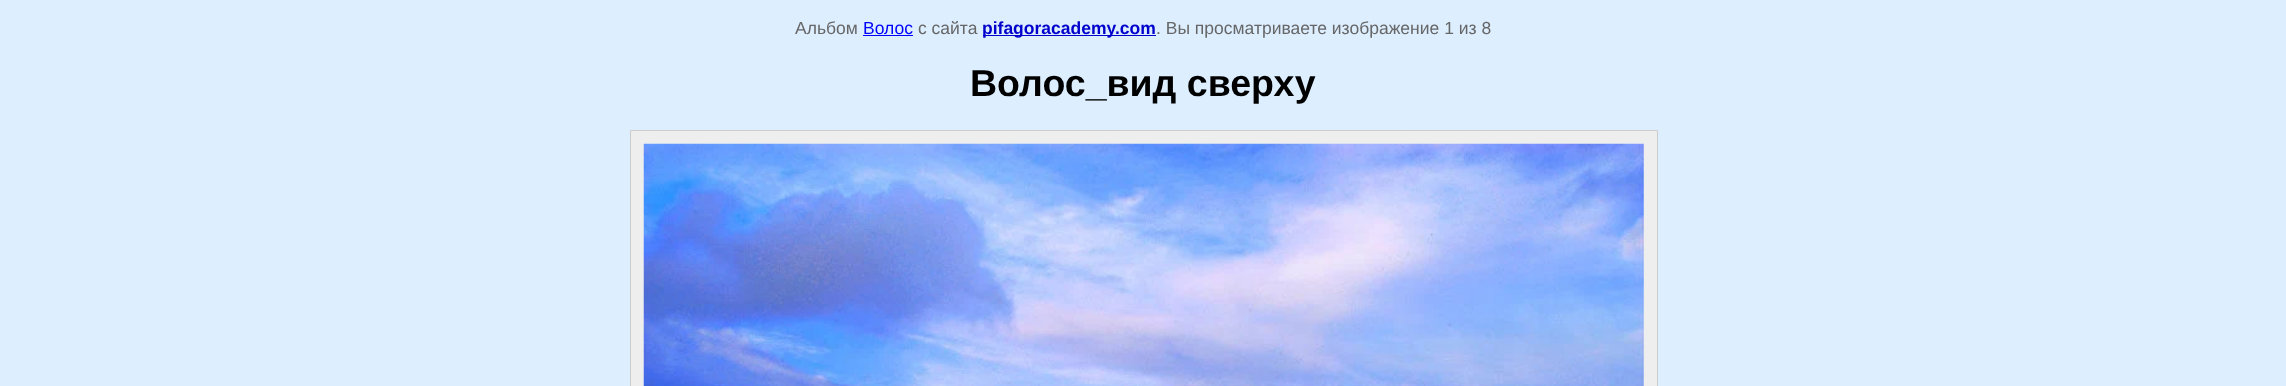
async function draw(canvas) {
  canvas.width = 2286
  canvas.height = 386
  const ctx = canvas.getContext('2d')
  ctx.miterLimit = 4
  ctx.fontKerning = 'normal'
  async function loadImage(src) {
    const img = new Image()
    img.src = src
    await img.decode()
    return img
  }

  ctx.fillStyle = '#def'
  ctx.fillRect(0, 0, 2286, 386)
  ctx.font = '17.5px Liberation Sans'
  ctx.fillStyle = '#666'
  ctx.fillText('Альбом', 795, 34)
  ctx.fillStyle = '#00f'
  ctx.fillText('Волос', 863, 34)
  ctx.fillRect(863, 35, 50, 1)
  ctx.fillStyle = '#666'
  ctx.fillText('с сайта', 918, 34)
  ctx.fillStyle = '#00c'
  ctx.fillRect(983, 35, 173, 1)
  ctx.font = 'bold 17.5px Liberation Sans'
  ctx.fillText('pifagoracademy.com', 982, 34)
  ctx.font = '17.5px Liberation Sans'
  ctx.fillStyle = '#666'
  ctx.fillText('. Вы просматриваете изображение 1 из 8', 1156, 34)
  ctx.font = 'bold 37.5px Liberation Sans'
  ctx.fillStyle = '#000'
  ctx.fillText('Волос_вид сверху', 970, 96)
  ctx.fillStyle = '#eee'
  ctx.beginPath()
  ctx.rect(630.5, 130.5, 1027, 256)
  ctx.fill()
  ctx.strokeStyle = '#ccc'
  ctx.stroke()
  ctx.drawImage(await loadImage('image0.png'), 643, 143, 1001, 243)
}

draw(document.querySelector('canvas'))
